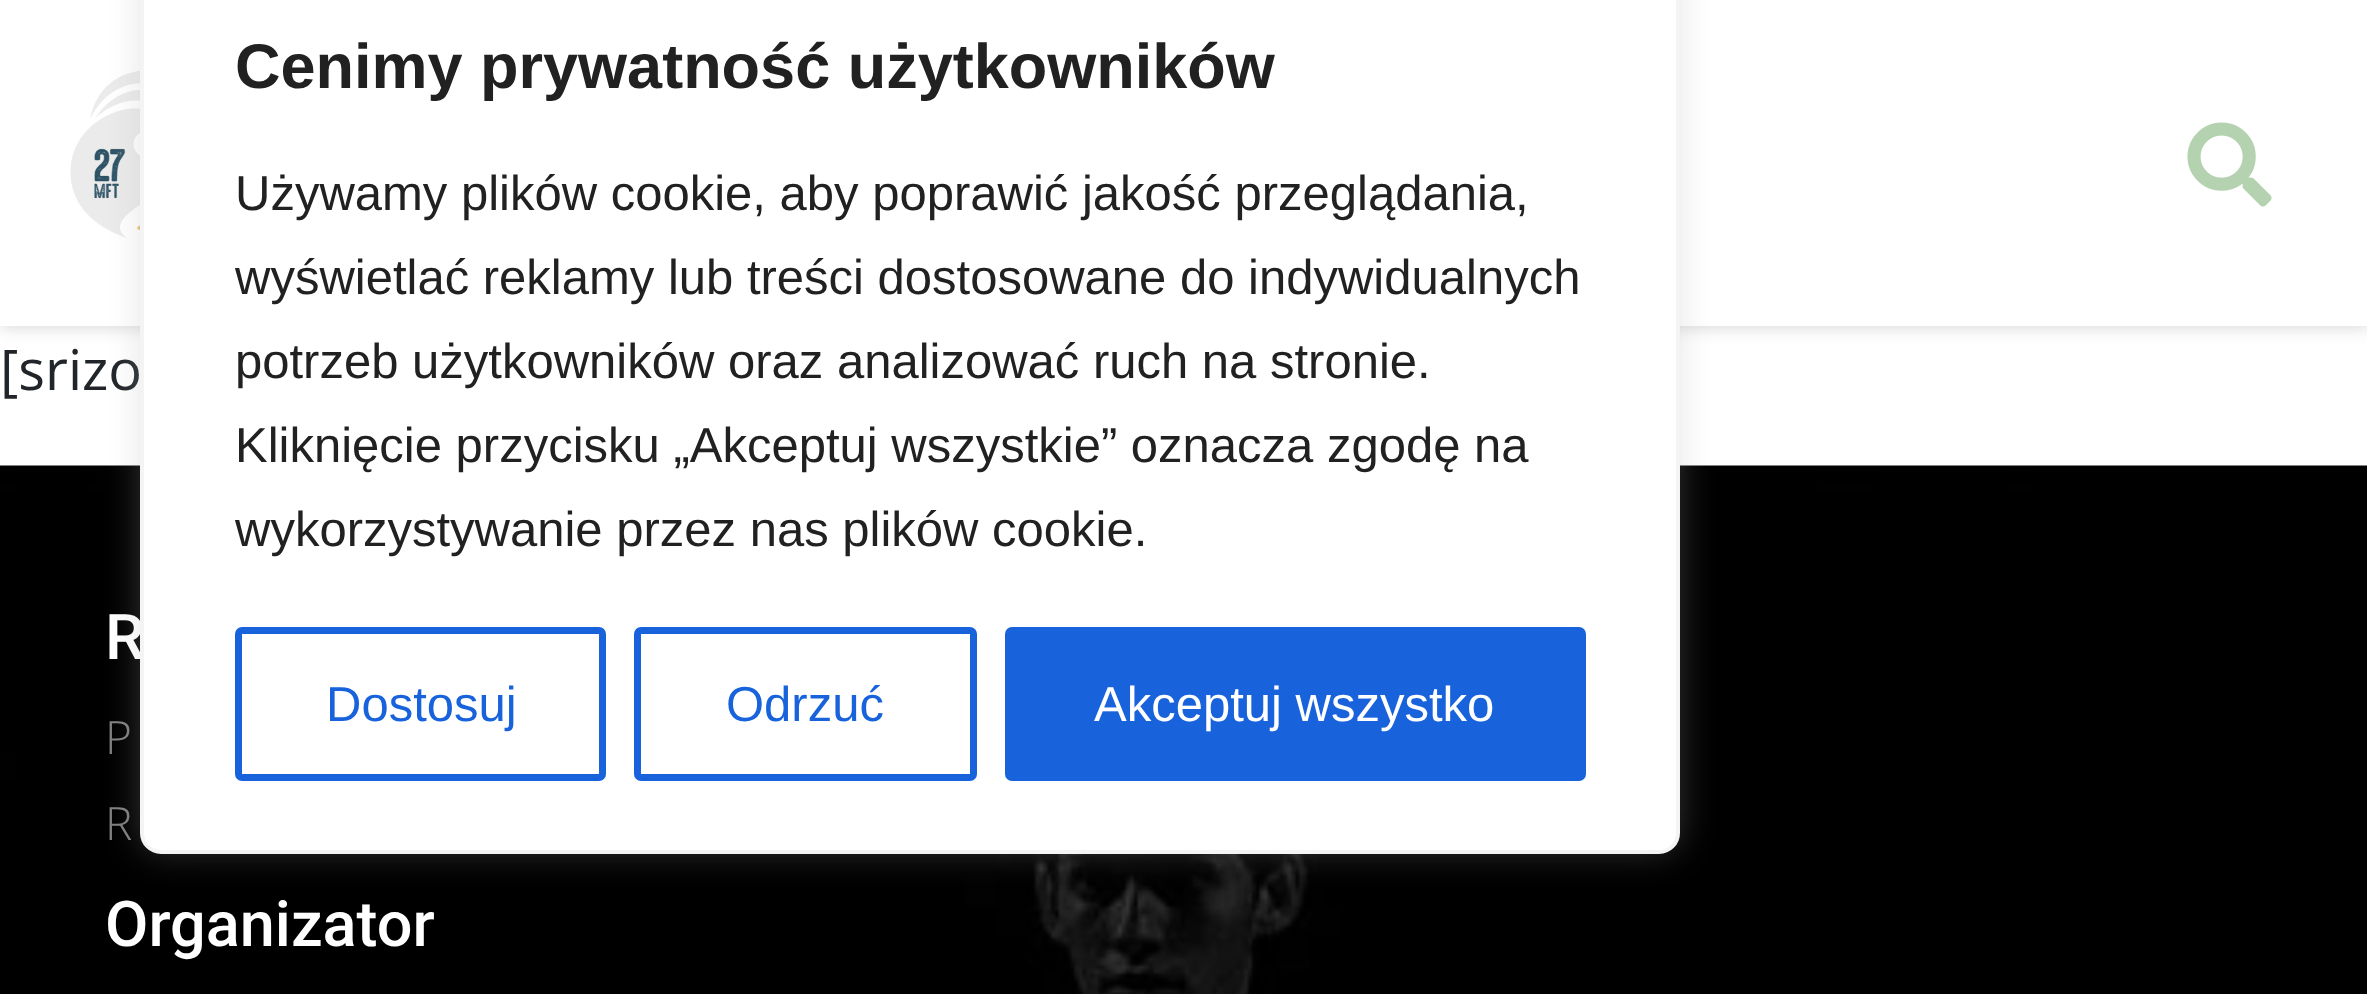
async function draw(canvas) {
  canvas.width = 2367
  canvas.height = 994
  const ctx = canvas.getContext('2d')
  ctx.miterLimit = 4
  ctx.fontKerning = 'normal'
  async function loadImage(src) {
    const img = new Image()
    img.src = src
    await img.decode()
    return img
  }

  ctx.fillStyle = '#fff'
  ctx.fillRect(0, 0, 2367, 994)
  ctx.fillStyle = '#0000002e'
  ctx.filter = 'blur(9px)'
  ctx.beginPath()
  ctx.rect(0, 0, 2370, 326)
  ctx.fill()
  ctx.filter = 'none'
  ctx.fillStyle = '#fff'
  ctx.fillRect(0, 0, 2367, 326)
  ctx.drawImage(await loadImage('image0.png'), 70, 70, 70, 168)
  ctx.drawImage(await loadImage('image1.png'), 2187, 122, 85, 85)
  ctx.font = '56px Open Sans'
  ctx.fillStyle = '#212529'
  ctx.fillText('[srizo', 0, 390)
  ctx.drawImage(await loadImage('image2.png'), 0, 465, 2367, 529)
  ctx.font = '500 63px Roboto'
  ctx.fillStyle = '#fff'
  ctx.fillText('R', 105, 659)
  ctx.font = '300 46px Open Sans'
  ctx.fillStyle = '#808080'
  ctx.fillText('P', 105, 754)
  ctx.fillText('R', 105, 840)
  ctx.font = '500 63px Roboto'
  ctx.fillStyle = '#fff'
  ctx.fillText('Organizator', 105, 946)
  ctx.fillStyle = '#acabab4d'
  ctx.filter = 'blur(17.5px)'
  ctx.beginPath()
  ctx.roundRect(140, -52, 1540, 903, 21)
  ctx.fill()
  ctx.filter = 'none'
  ctx.fillStyle = '#fff'
  ctx.beginPath()
  ctx.roundRect(142, -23, 1536, 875, 19)
  ctx.fill()
  ctx.strokeStyle = '#f4f4f4'
  ctx.lineWidth = 4
  ctx.stroke()
  ctx.font = 'bold 63px Liberation Sans'
  ctx.fillStyle = '#212121'
  ctx.fillText('Cenimy prywatność użytkowników', 235, 88)
  ctx.font = '49px Liberation Sans'
  ctx.fillText('Używamy plików cookie, aby poprawić jakość przeglądania,', 235, 210)
  ctx.fillText('wyświetlać reklamy lub treści dostosowane do indywidualnych', 235, 294)
  ctx.fillText('potrzeb użytkowników oraz analizować ruch na stronie.', 235, 378)
  ctx.fillText('Kliknięcie przycisku „Akceptuj wszystkie” oznacza zgodę na', 235, 462)
  ctx.fillText('wykorzystywanie przez nas plików cookie.', 235, 546)
  ctx.beginPath()
  ctx.roundRect(238.5, 630.5, 364, 147, 3.5)
  ctx.strokeStyle = '#1863dc'
  ctx.lineWidth = 7
  ctx.stroke()
  ctx.fillStyle = '#1863dc'
  ctx.fillText('Dostosuj', 326, 721)
  ctx.beginPath()
  ctx.roundRect(637.5, 630.5, 336, 147, 3.5)
  ctx.stroke()
  ctx.fillText('Odrzuć', 726, 721)
  ctx.beginPath()
  ctx.roundRect(1008.5, 630.5, 574, 147, 3.5)
  ctx.fill()
  ctx.stroke()
  ctx.fillStyle = '#fff'
  ctx.fillText('Akceptuj wszystko', 1094, 721)
}

draw(document.querySelector('canvas'))
